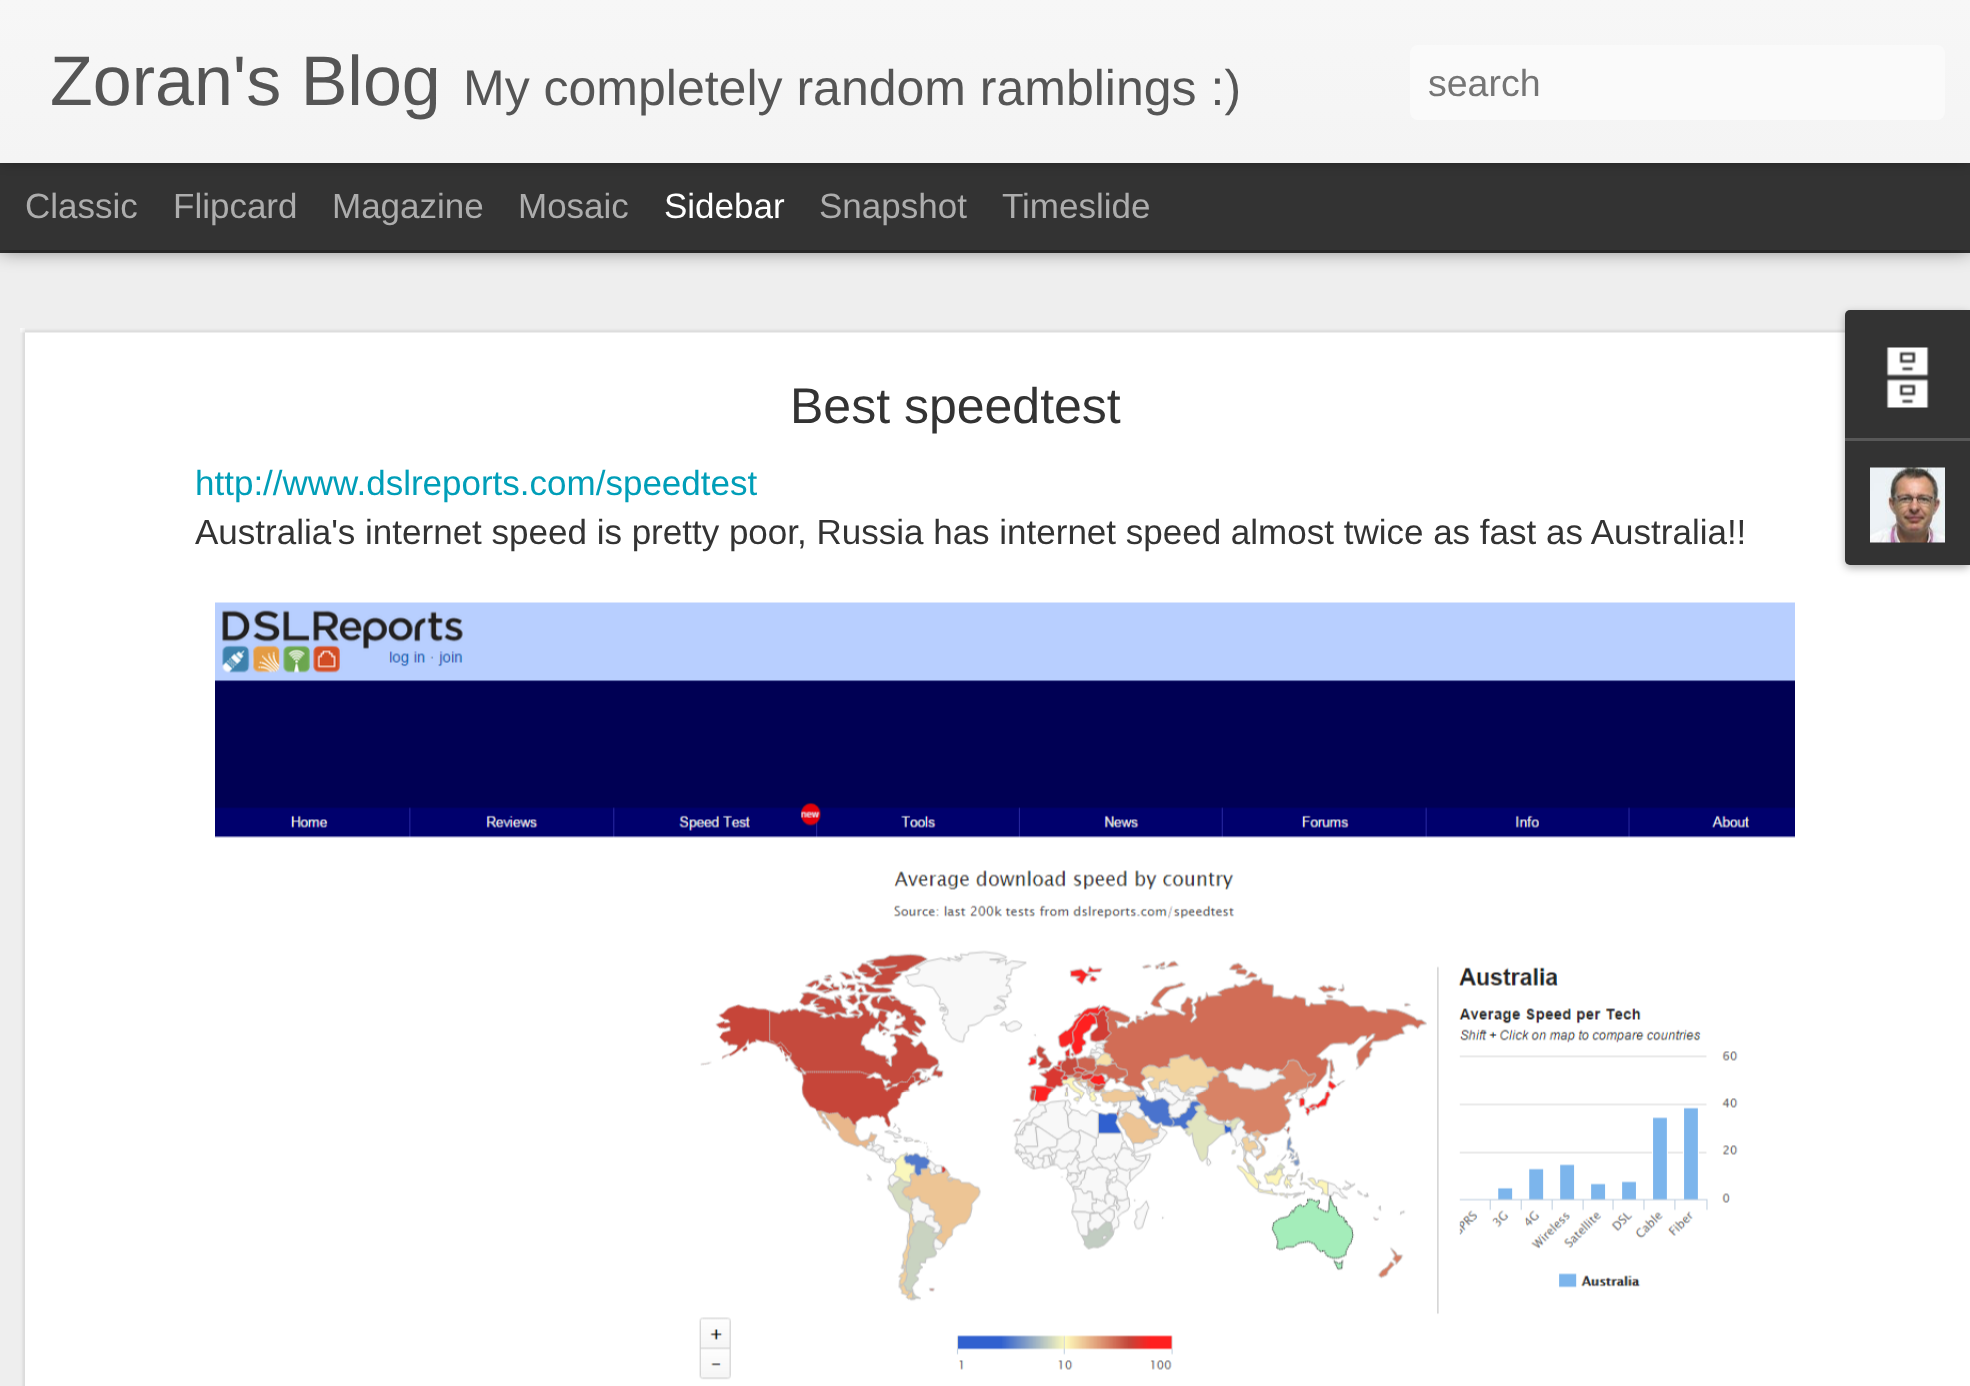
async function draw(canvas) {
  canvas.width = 1970
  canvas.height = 1386
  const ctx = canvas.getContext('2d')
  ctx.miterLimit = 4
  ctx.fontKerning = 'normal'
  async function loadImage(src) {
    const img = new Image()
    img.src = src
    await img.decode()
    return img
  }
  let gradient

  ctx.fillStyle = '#333'
  ctx.fillRect(0, 0, 1970, 1386)
  ctx.fillStyle = '#eee'
  ctx.fillRect(0, 253, 1970, 1133)
  ctx.fillStyle = '#00000080'
  ctx.filter = 'blur(10px)'
  ctx.beginPath()
  ctx.rect(0, 163, 1970, 87)
  ctx.fill()
  ctx.filter = 'none'
  ctx.fillStyle = '#333'
  ctx.fillRect(0, 163, 1970, 87)
  ctx.fillStyle = '#0000004d'
  ctx.filter = 'blur(6px)'
  ctx.beginPath()
  ctx.rect(0, 0, 1970, 163)
  ctx.fill()
  ctx.filter = 'none'
  gradient = ctx.createLinearGradient(0, 0, 0, 163)
  gradient.addColorStop(0, '#f7f7f7')
  gradient.addColorStop(1, '#f4f4f4')
  ctx.fillStyle = gradient
  ctx.fillRect(0, 0, 1970, 163)
  ctx.font = '70px Liberation Sans'
  ctx.fillStyle = '#555'
  ctx.fillText('Zoran\'s Blog', 50, 105)
  ctx.font = '50px Liberation Sans'
  ctx.fillText('My completely random ramblings :)', 463, 105)
  ctx.fillStyle = '#fafafa'
  ctx.beginPath()
  ctx.roundRect(1410, 45, 535, 75, 8)
  ctx.fill()
  ctx.font = '37.5px Liberation Sans'
  ctx.fillStyle = '#757575'
  ctx.fillText('search', 1428, 96)
  ctx.font = '35px Liberation Sans'
  ctx.fillStyle = '#adadad'
  ctx.fillText('Classic', 25, 218)
  ctx.fillText('Flipcard', 173, 218)
  ctx.fillText('Magazine', 332, 218)
  ctx.fillText('Mosaic', 518, 218)
  ctx.fillStyle = '#fff'
  ctx.fillText('Sidebar', 664, 218)
  ctx.fillStyle = '#adadad'
  ctx.fillText('Snapshot', 819, 218)
  ctx.fillText('Timeslide', 1002, 218)
  ctx.fillStyle = '#fff'
  ctx.fillRect(20, 328, 1950, 1058)
  ctx.drawImage(await loadImage('image0.png'), 20, 328, 1825, 1058)
  ctx.font = '50px Liberation Sans'
  ctx.fillStyle = '#333'
  ctx.fillText('Best speedtest', 790, 423)
  ctx.font = '35px Liberation Sans'
  ctx.fillStyle = '#009eb8'
  ctx.fillText('http://www.dslreports.com/speedtest', 195, 495)
  ctx.fillStyle = '#333'
  ctx.fillText('Australia\'s internet speed is pretty poor, Russia has internet speed almost twice as fast as Australia!!', 195, 544)
  ctx.drawImage(await loadImage('image1.png'), 215, 602, 1580, 778)
  ctx.fillStyle = '#0000004d'
  ctx.filter = 'blur(4px)'
  ctx.beginPath()
  ctx.roundRect(1845, 313, 125, 255, 5)
  ctx.fill()
  ctx.filter = 'none'
  ctx.fillStyle = '#333'
  ctx.beginPath()
  ctx.roundRect(1845, 310, 125, 128, [5, 0, 0, 0])
  ctx.fill()
  ctx.drawImage(await loadImage('image2.png'), 1886, 347, 43, 61)
  ctx.beginPath()
  ctx.roundRect(1845, 438, 125, 127, [0, 0, 0, 5])
  ctx.fill()
  ctx.fillStyle = '#585858'
  ctx.fillRect(1845, 438, 125, 3)
  ctx.drawImage(await loadImage('image3.png'), 1870, 467, 75, 76)
}

draw(document.querySelector('canvas'))
